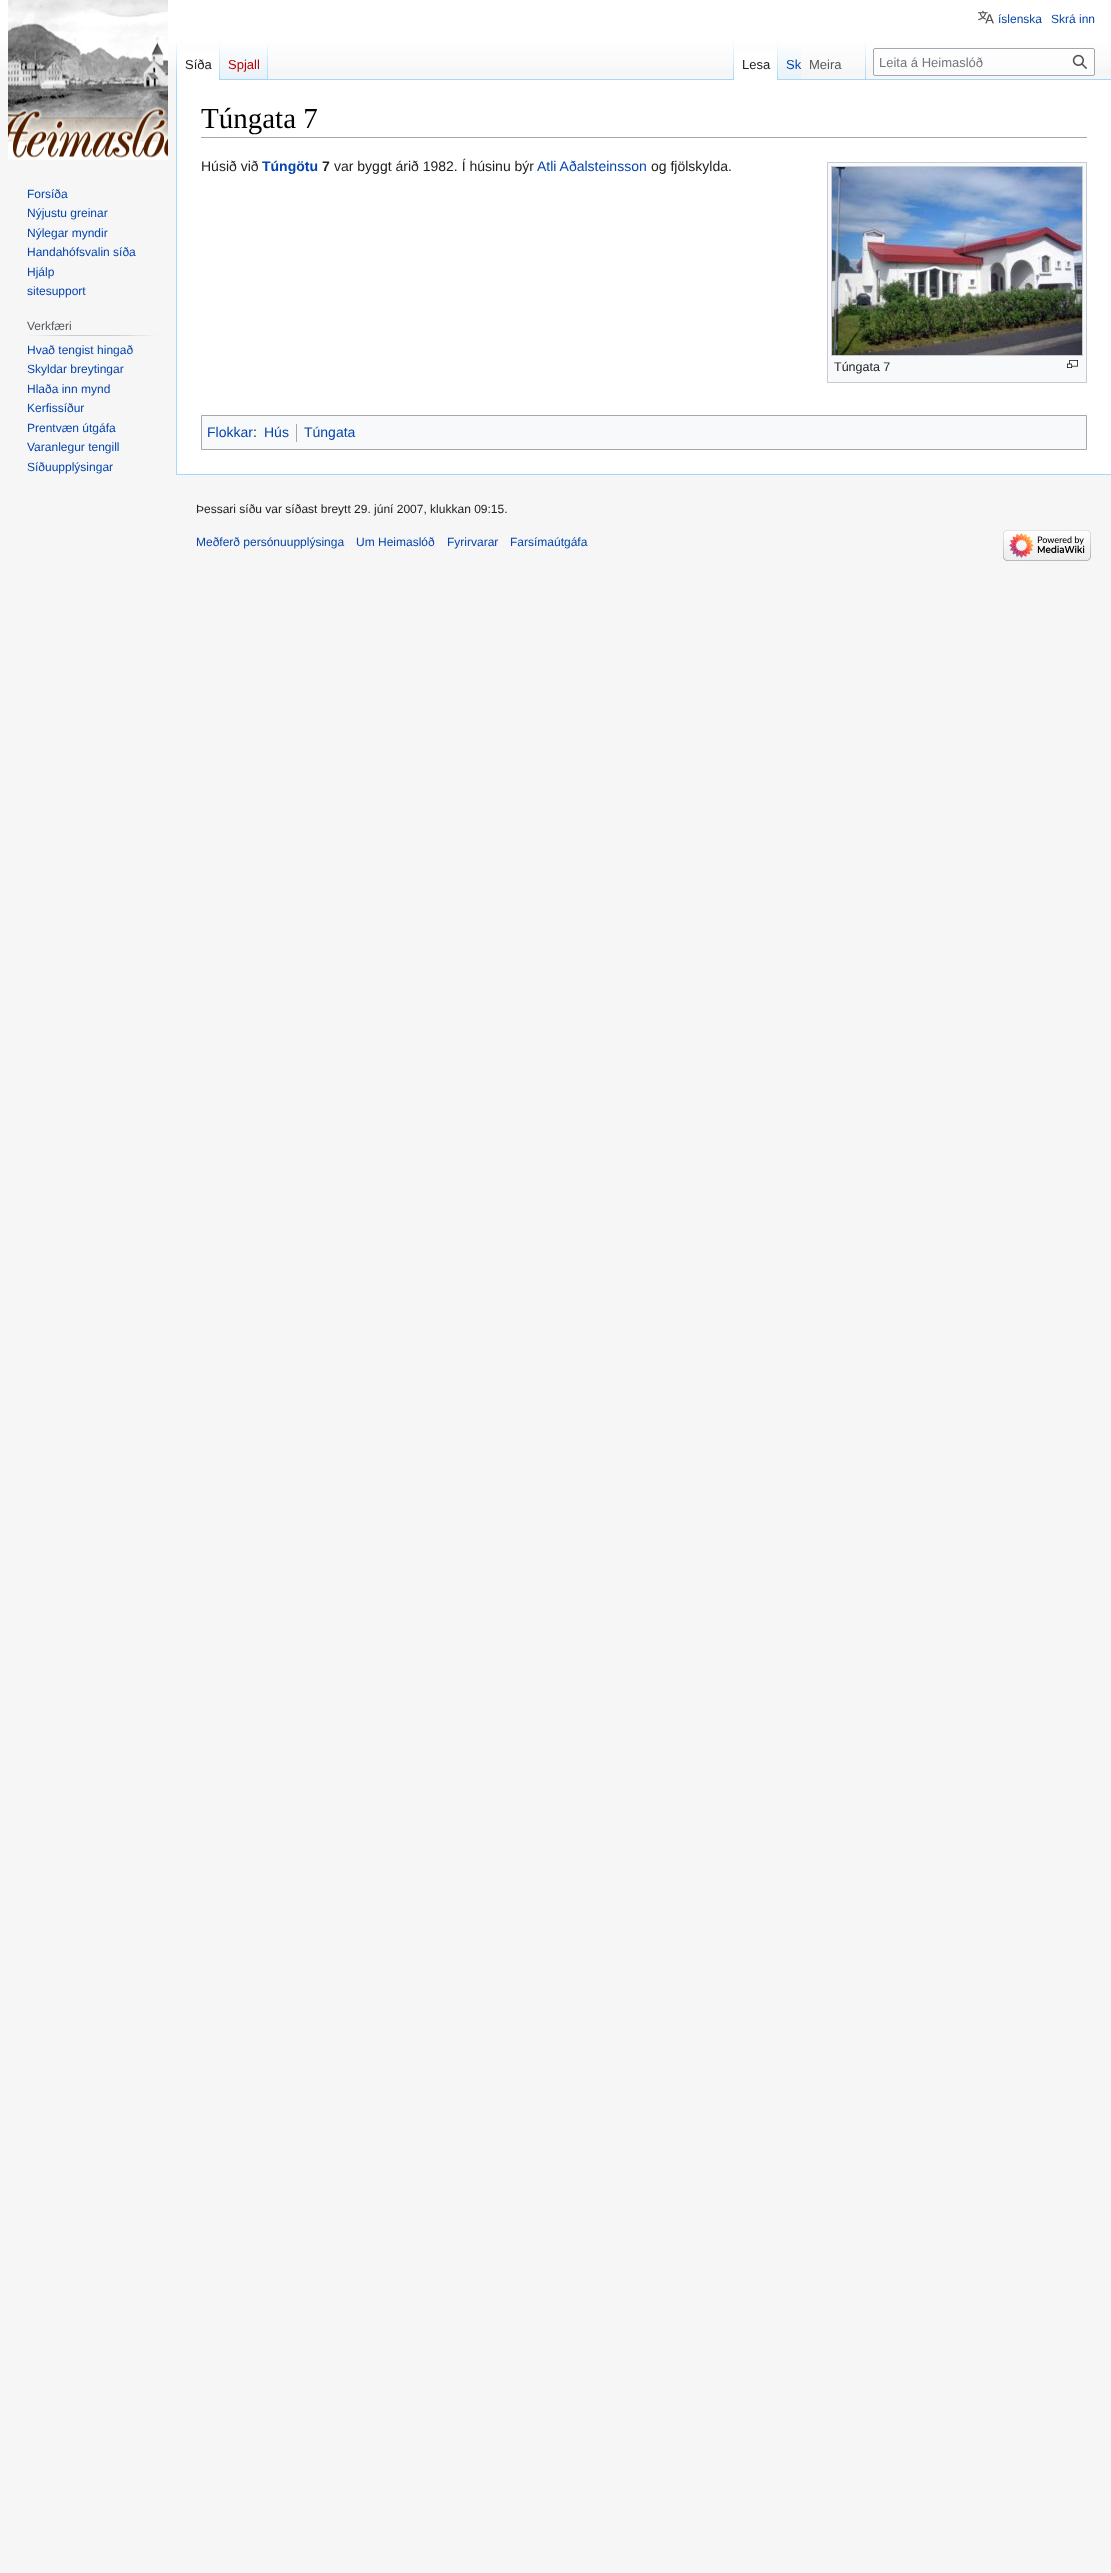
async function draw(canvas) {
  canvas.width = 1111
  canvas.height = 2573
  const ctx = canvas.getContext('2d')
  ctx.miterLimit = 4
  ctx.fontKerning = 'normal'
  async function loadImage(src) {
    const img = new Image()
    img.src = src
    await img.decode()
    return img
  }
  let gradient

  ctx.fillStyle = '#f6f6f6'
  ctx.fillRect(0, 0, 1111, 2573)
  gradient = ctx.createLinearGradient(556, 0, 556, 80)
  gradient.addColorStop(0.5, '#fff')
  gradient.addColorStop(1, '#f6f6f6')
  ctx.fillStyle = gradient
  ctx.fillRect(0, 0, 1111, 69)
  ctx.drawImage(await loadImage('image0.png'), 978, 10, 16, 14)
  ctx.font = '12px Liberation Sans'
  ctx.fillStyle = '#0645ad'
  ctx.fillText('íslenska', 998, 23)
  ctx.fillText('Skrá inn', 1051, 23)
  ctx.fillStyle = '#a7d7f9'
  ctx.fillRect(176, 474, 935, 1)
  ctx.fillRect(176, 79, 1, 396)
  gradient = ctx.createLinearGradient(177, 40, 177, 80)
  gradient.addColorStop(0, '#a7d7f900')
  gradient.addColorStop(1, '#a7d7f9')
  ctx.fillStyle = gradient
  ctx.fillRect(176, 40, 1, 40)
  ctx.fillStyle = '#fff'
  ctx.fillRect(177, 51, 42, 29)
  gradient = ctx.createLinearGradient(220, 40, 220, 80)
  gradient.addColorStop(0, '#fff')
  gradient.addColorStop(1, '#a7d7f9')
  ctx.fillStyle = gradient
  ctx.fillRect(219, 40, 1, 40)
  ctx.font = '13px Liberation Sans'
  ctx.fillStyle = '#202122'
  ctx.fillText('Síða', 185, 69)
  gradient = ctx.createLinearGradient(244, 80, 244, 40)
  gradient.addColorStop(0, '#77c1f6')
  gradient.addColorStop(0.03, '#e8f2f8')
  gradient.addColorStop(1, '#fff')
  ctx.fillStyle = gradient
  ctx.fillRect(220, 46, 48, 34)
  gradient = ctx.createLinearGradient(268, 40, 268, 80)
  gradient.addColorStop(0, '#a7d7f900')
  gradient.addColorStop(1, '#a7d7f9')
  ctx.fillStyle = gradient
  ctx.fillRect(267, 40, 1, 40)
  ctx.fillStyle = '#ba0000'
  ctx.fillText('Spjall', 228, 69)
  ctx.fillStyle = '#a7d7f9'
  ctx.fillRect(268, 79, 843, 1)
  gradient = ctx.createLinearGradient(734, 40, 734, 80)
  gradient.addColorStop(0, '#a7d7f900')
  gradient.addColorStop(1, '#a7d7f9')
  ctx.fillStyle = gradient
  ctx.fillRect(733, 40, 1, 40)
  ctx.fillStyle = '#fff'
  ctx.fillRect(734, 51, 43, 29)
  gradient = ctx.createLinearGradient(778, 40, 778, 80)
  gradient.addColorStop(0, '#fff')
  gradient.addColorStop(1, '#a7d7f9')
  ctx.fillStyle = gradient
  ctx.fillRect(777, 40, 1, 40)
  ctx.fillStyle = '#202122'
  ctx.fillText('Lesa', 742, 69)
  gradient = ctx.createLinearGradient(790, 80, 790, 40)
  gradient.addColorStop(0, '#77c1f6')
  gradient.addColorStop(0.03, '#e8f2f8')
  gradient.addColorStop(1, '#fff')
  ctx.fillStyle = gradient
  ctx.fillRect(778, 46, 23, 33)
  ctx.fillStyle = '#0645ad'
  ctx.fillText('Sk', 786, 69)
  gradient = ctx.createLinearGradient(866, 40, 866, 80)
  gradient.addColorStop(0, '#a7d7f900')
  gradient.addColorStop(1, '#a7d7f9')
  ctx.fillStyle = gradient
  ctx.fillRect(865, 40, 1, 40)
  ctx.fillStyle = '#54595d'
  ctx.fillText('Meira', 809, 69)
  ctx.fillStyle = '#ffffff80'
  ctx.beginPath()
  ctx.roundRect(873.5, 48.5, 221, 27, 1.5)
  ctx.fill()
  ctx.strokeStyle = '#a2a9b1'
  ctx.stroke()
  ctx.fillStyle = '#72777d'
  ctx.fillText('Leita á Heimaslóð', 879, 67)
  ctx.drawImage(await loadImage('image1.png'), 1072, 54, 15, 15)
  ctx.drawImage(await loadImage('image2.png'), 8, 0, 160, 160)
  ctx.font = '12px Liberation Sans'
  ctx.fillStyle = '#0645ad'
  ctx.fillText('Forsíða', 27, 198)
  ctx.fillText('Nýjustu greinar', 27, 217)
  ctx.fillText('Nýlegar myndir', 27, 237)
  ctx.fillText('Handahófsvalin síða', 27, 256)
  ctx.fillText('Hjálp', 27, 276)
  ctx.fillText('sitesupport', 27, 295)
  gradient = ctx.createLinearGradient(27, 336, 158, 336)
  gradient.addColorStop(0, '#f6f6f6')
  gradient.addColorStop(0.33, '#c8ccd1')
  gradient.addColorStop(0.66, '#c8ccd1')
  gradient.addColorStop(1, '#f6f6f6')
  ctx.fillStyle = gradient
  ctx.fillRect(27, 335, 131, 1)
  ctx.fillStyle = '#54595d'
  ctx.fillText('Verkfæri', 27, 330)
  ctx.fillStyle = '#0645ad'
  ctx.fillText('Hvað tengist hingað', 27, 354)
  ctx.fillText('Skyldar breytingar', 27, 373)
  ctx.fillText('Hlaða inn mynd', 27, 393)
  ctx.fillText('Kerfissíður', 27, 412)
  ctx.fillText('Prentvæn útgáfa', 27, 432)
  ctx.fillText('Varanlegur tengill', 27, 451)
  ctx.fillText('Síðuupplýsingar', 27, 471)
  ctx.fillStyle = '#fff'
  ctx.fillRect(177, 80, 934, 394)
  ctx.fillStyle = '#a2a9b1'
  ctx.fillRect(201, 137, 886, 1)
  ctx.font = '29px Liberation Serif'
  ctx.fillStyle = '#000'
  ctx.fillText('Túngata 7', 201, 128)
  ctx.font = '14px Liberation Sans'
  ctx.fillStyle = '#202122'
  ctx.fillText('Húsið við', 201, 171)
  ctx.font = 'bold 14px Liberation Sans'
  ctx.fillStyle = '#0645ad'
  ctx.fillText('Túngötu', 262, 171)
  ctx.fillStyle = '#202122'
  ctx.fillText('7', 322, 171)
  ctx.font = '14px Liberation Sans'
  ctx.fillText('var byggt árið 1982. Í húsinu býr', 334, 171)
  ctx.fillStyle = '#0645ad'
  ctx.fillText('Atli Aðalsteinsson', 537, 171)
  ctx.fillStyle = '#202122'
  ctx.fillText('og fjölskylda.', 651, 171)
  ctx.fillStyle = '#f8f9fa'
  ctx.fillRect(828, 163, 258, 219)
  ctx.fillStyle = '#c8ccd1'
  ctx.fillRect(827, 162, 260, 1)
  ctx.fillRect(827, 382, 260, 1)
  ctx.fillRect(1086, 162, 1, 221)
  ctx.fillRect(827, 162, 1, 221)
  ctx.strokeStyle = '#c8ccd1'
  ctx.strokeRect(831.5, 166.5, 251, 189)
  ctx.drawImage(await loadImage('image3.png'), 832, 167, 250, 188)
  ctx.drawImage(await loadImage('image4.png'), 1067, 360, 11, 8)
  ctx.font = '12.5px Liberation Sans'
  ctx.fillStyle = '#202122'
  ctx.fillText('Túngata 7', 834, 371)
  ctx.fillStyle = '#f8f9fa'
  ctx.beginPath()
  ctx.rect(201.5, 415.5, 885, 34)
  ctx.fill()
  ctx.strokeStyle = '#a2a9b1'
  ctx.stroke()
  ctx.font = '14px Liberation Sans'
  ctx.fillStyle = '#0645ad'
  ctx.fillText('Flokkar', 207, 437)
  ctx.fillStyle = '#202122'
  ctx.fillText(':', 253, 437)
  ctx.fillStyle = '#0645ad'
  ctx.fillText('Hús', 264, 437)
  ctx.fillStyle = '#a2a9b1'
  ctx.fillRect(296, 424, 1, 18)
  ctx.fillStyle = '#0645ad'
  ctx.fillText('Túngata', 304, 437)
  ctx.font = '12px Liberation Sans'
  ctx.fillStyle = '#202122'
  ctx.fillText('Þessari síðu var síðast breytt 29. júní 2007, klukkan 09:15.', 196, 513)
  ctx.fillStyle = '#0645ad'
  ctx.fillText('Meðferð persónuupplýsinga', 196, 546)
  ctx.fillText('Um Heimaslóð', 356, 546)
  ctx.fillText('Fyrirvarar', 447, 546)
  ctx.fillText('Farsímaútgáfa', 510, 546)
  ctx.drawImage(await loadImage('image5.png'), 1003, 530, 88, 31)
}

draw(document.querySelector('canvas'))
